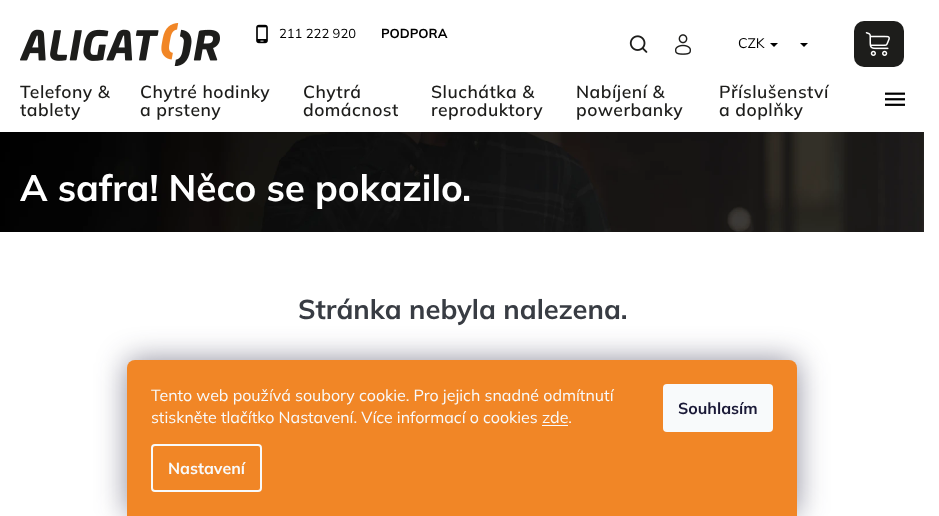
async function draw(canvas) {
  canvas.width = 939
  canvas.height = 516
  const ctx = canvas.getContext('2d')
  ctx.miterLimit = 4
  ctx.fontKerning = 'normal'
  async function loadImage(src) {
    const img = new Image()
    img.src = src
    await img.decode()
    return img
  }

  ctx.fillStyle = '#fff'
  ctx.fillRect(0, 0, 939, 516)
  ctx.drawImage(await loadImage('image0.png'), 256, 24, 12, 20)
  ctx.font = '13px Mulish'
  ctx.fillStyle = '#000'
  ctx.fillText('211 222 920', 279, 38)
  ctx.font = 'bold 13px Mulish'
  ctx.fillText('PODPORA', 381, 38)
  ctx.drawImage(await loadImage('image1.png'), 675, 34, 16, 21)
  ctx.font = '14px Mulish'
  ctx.fillText('CZK', 738, 48)
  ctx.beginPath()
  ctx.moveTo(770, 43)
  ctx.lineTo(778, 43)
  ctx.lineTo(774, 47)
  ctx.closePath()
  ctx.moveTo(800, 43)
  ctx.lineTo(808, 43)
  ctx.lineTo(804, 47)
  ctx.closePath()
  ctx.fill()
  ctx.drawImage(await loadImage('image2.png'), 20, 23, 200, 43)
  ctx.drawImage(await loadImage('image3.png'), 629, 35, 19, 18)
  ctx.fillStyle = '#1d1d1b'
  ctx.beginPath()
  ctx.roundRect(854, 21, 50, 46, 10)
  ctx.fill()
  ctx.drawImage(await loadImage('image4.png'), 865, 32, 25, 24)
  ctx.letterSpacing = '0.5px'
  ctx.font = '600 17.5px Mulish'
  ctx.fillText('Telefony &', 20, 98)
  ctx.fillText('tablety', 20, 116)
  ctx.fillText('Chytré hodinky', 140, 98)
  ctx.fillText('a prsteny', 140, 116)
  ctx.fillText('Chytrá', 303, 98)
  ctx.fillText('domácnost', 303, 116)
  ctx.fillText('Sluchátka &', 431, 98)
  ctx.fillText('reproduktory', 431, 116)
  ctx.fillText('Nabíjení &', 576, 98)
  ctx.fillText('powerbanky', 576, 116)
  ctx.fillText('Příslušenství', 719, 98)
  ctx.fillText('a doplňky', 719, 116)
  ctx.drawImage(await loadImage('image5.png'), 885, 92, 20, 14)
  ctx.drawImage(await loadImage('image6.png'), 0, 132, 924, 100)
  ctx.letterSpacing = '0px'
  ctx.font = 'bold 36.75px Mulish'
  ctx.fillStyle = '#fff'
  ctx.fillText('A safra! Něco se pokazilo.', 20, 201)
  ctx.font = 'bold 27.25px Mulish'
  ctx.fillStyle = '#383c43'
  ctx.fillText('Stránka nebyla nalezena.', 298, 319)
  ctx.fillStyle = '#1b193980'
  ctx.filter = 'blur(15px)'
  ctx.beginPath()
  ctx.roundRect(127, 360, 670, 156, 8)
  ctx.fill()
  ctx.filter = 'none'
  ctx.fillStyle = '#f18626'
  ctx.beginPath()
  ctx.roundRect(127, 360, 670, 156, [8, 8, 0, 0])
  ctx.fill()
  ctx.font = '16px Mulish'
  ctx.fillStyle = '#f8fafb'
  ctx.fillText('Tento web používá soubory cookie. Pro jejich snadné odmítnutí', 151, 401)
  ctx.fillText('stiskněte tlačítko Nastavení. Více informací o cookies zde.', 151, 423)
  ctx.fillRect(542, 425, 26, 1)
  ctx.beginPath()
  ctx.roundRect(152, 445, 109, 46, 3)
  ctx.strokeStyle = '#f8fafb'
  ctx.lineWidth = 2
  ctx.stroke()
  ctx.font = 'bold 16px Mulish'
  ctx.fillText('Nastavení', 168, 474)
  ctx.beginPath()
  ctx.roundRect(663, 384, 110, 48, 4)
  ctx.fill()
  ctx.fillStyle = '#1a1937'
  ctx.fillText('Souhlasím', 678, 414)
}

draw(document.querySelector('canvas'))
